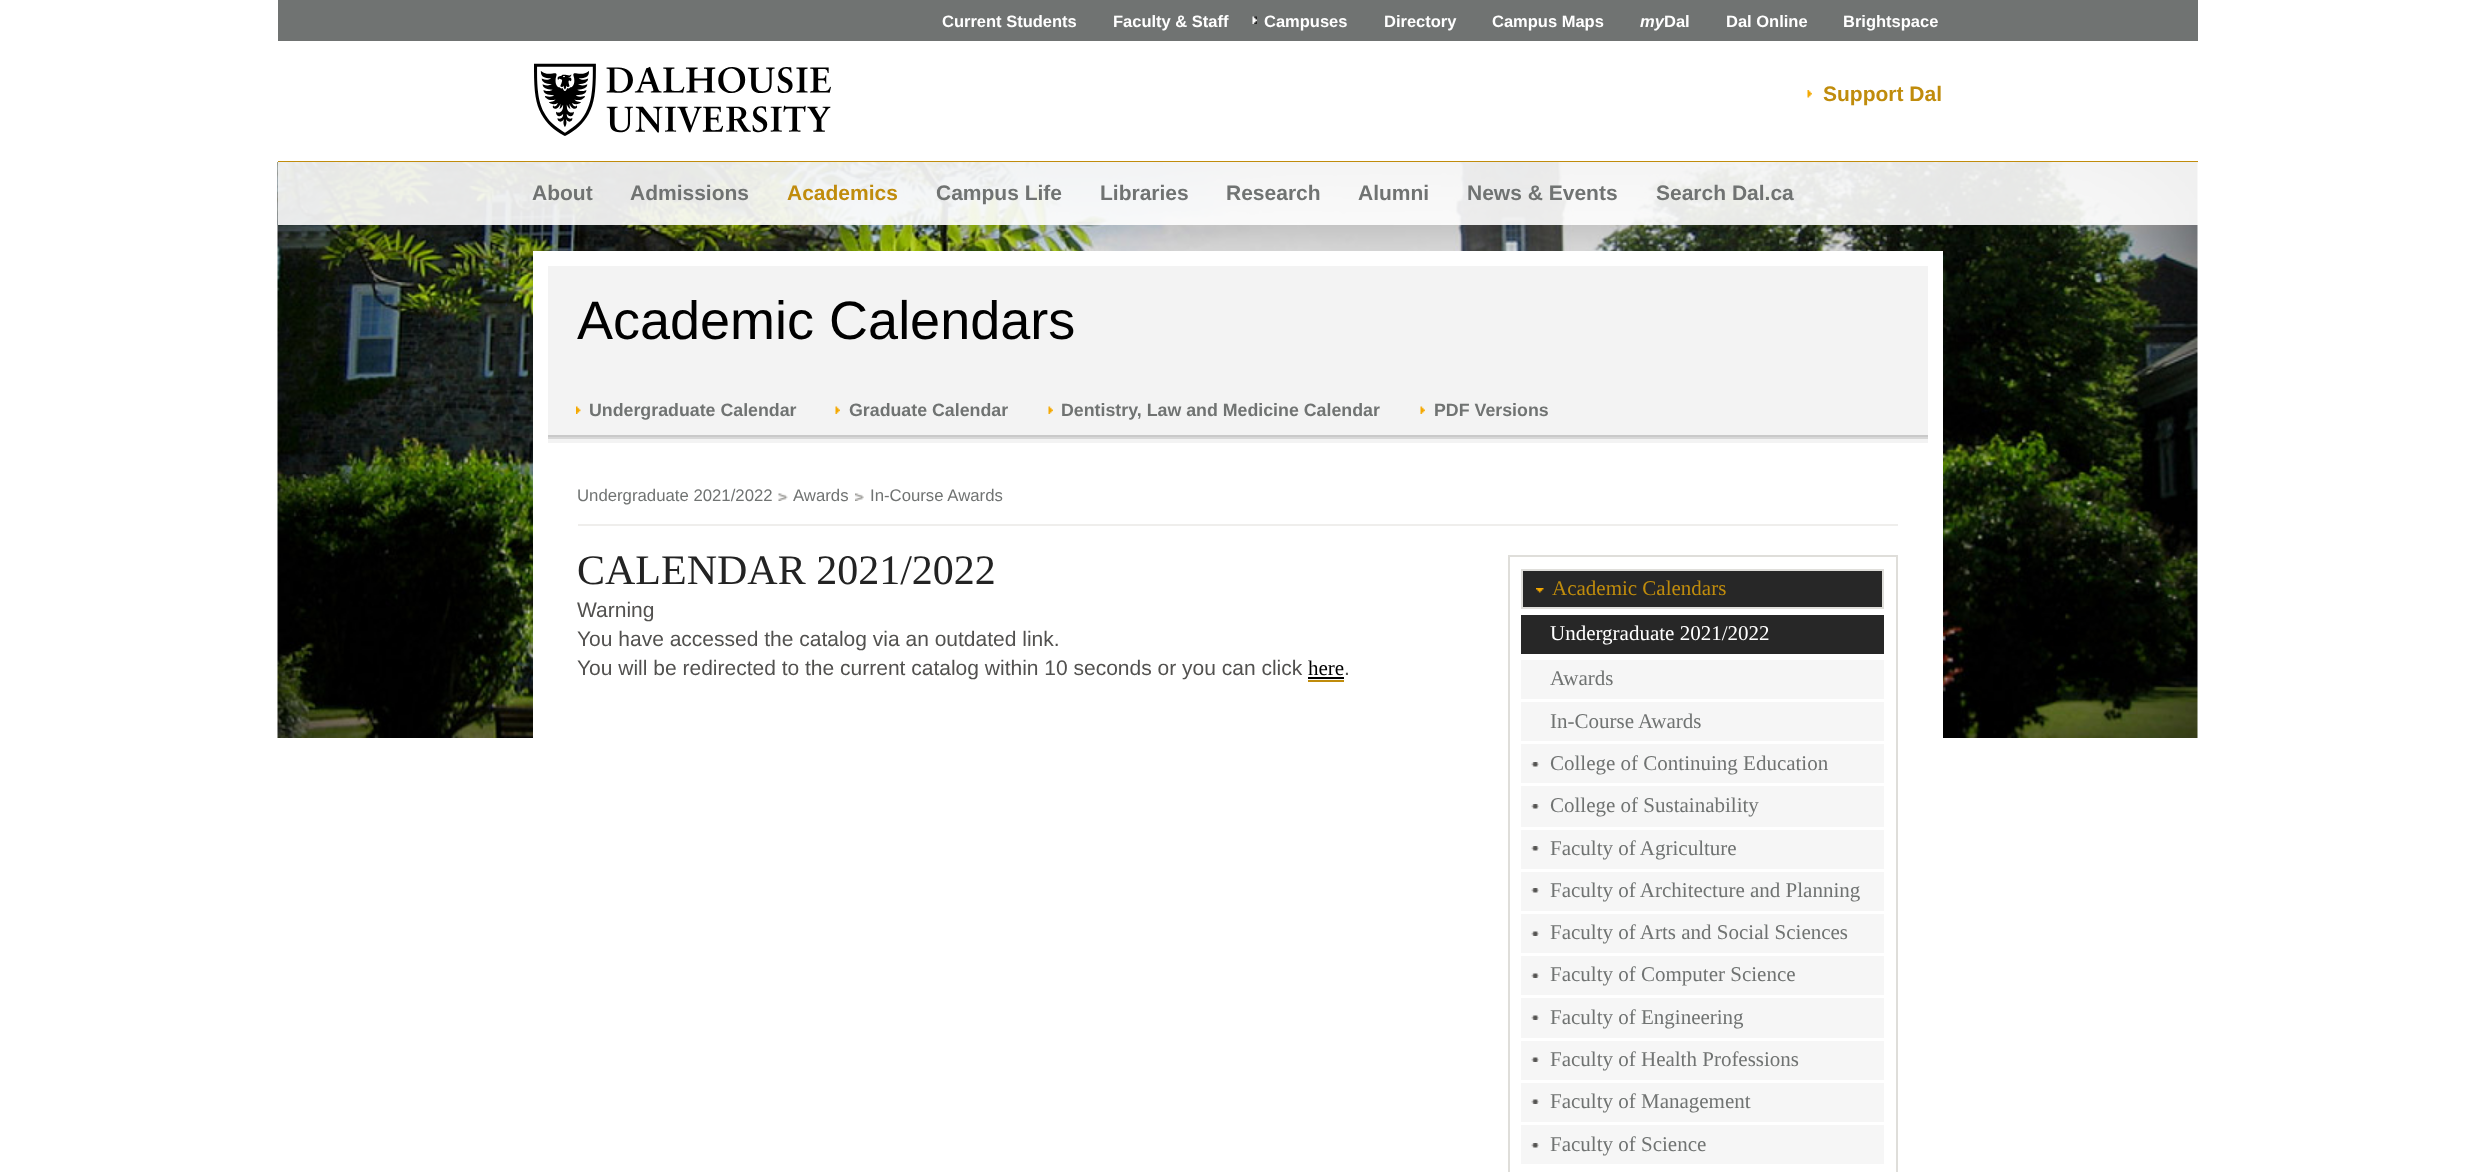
async function draw(canvas) {
  canvas.width = 2473
  canvas.height = 1172
  const ctx = canvas.getContext('2d')
  ctx.miterLimit = 4
  ctx.fontKerning = 'normal'
  async function loadImage(src) {
    const img = new Image()
    img.src = src
    await img.decode()
    return img
  }

  ctx.fillStyle = '#fff'
  ctx.fillRect(0, 0, 2473, 1172)
  ctx.fillStyle = '#707372'
  ctx.fillRect(278, 0, 1920, 41)
  ctx.font = 'bold 16.5px Liberation Sans'
  ctx.fillStyle = '#fff'
  ctx.fillText('Current Students', 942, 27)
  ctx.fillText('Faculty & Staff', 1113, 27)
  ctx.drawImage(await loadImage('image0.png'), 1252, 16, 5, 8)
  ctx.fillText('Campuses', 1264, 27)
  ctx.fillText('Directory', 1384, 27)
  ctx.fillText('Campus Maps', 1492, 27)
  ctx.font = 'italic bold 16.5px Liberation Sans'
  ctx.fillText('my', 1640, 27)
  ctx.font = 'bold 16.5px Liberation Sans'
  ctx.fillText('Dal', 1664, 27)
  ctx.fillText('Dal Online', 1726, 27)
  ctx.fillText('Brightspace', 1843, 27)
  ctx.fillStyle = '#c08c0c'
  ctx.fillRect(278, 161, 1920, 2)
  ctx.drawImage(await loadImage('image1.png'), 534, 63, 297, 73)
  ctx.drawImage(await loadImage('image2.png'), 1807, 90, 5, 8)
  ctx.font = 'bold 21px Liberation Sans'
  ctx.fillText('Support Dal', 1823, 101)
  ctx.drawImage(await loadImage('image3.png'), 277, 162, 1921, 576)
  ctx.fillStyle = '#ffffffe6'
  ctx.fillRect(278, 162, 1920, 63)
  ctx.fillStyle = '#707372'
  ctx.fillText('About', 532, 200)
  ctx.fillText('Admissions', 630, 200)
  ctx.fillStyle = '#c08c0c'
  ctx.fillText('Academics', 787, 200)
  ctx.fillStyle = '#707372'
  ctx.fillText('Campus Life', 936, 200)
  ctx.fillText('Libraries', 1100, 200)
  ctx.fillText('Research', 1226, 200)
  ctx.fillText('Alumni', 1358, 200)
  ctx.fillText('News & Events', 1467, 200)
  ctx.fillText('Search Dal.ca', 1656, 200)
  ctx.fillStyle = '#fff'
  ctx.fillRect(533, 251, 1410, 487)
  ctx.fillStyle = '#f3f3f3'
  ctx.fillRect(548, 266, 1380, 177)
  ctx.font = '54px Liberation Sans'
  ctx.fillStyle = '#000'
  ctx.fillText('Academic Calendars', 577, 339)
  ctx.fillStyle = '#d7d7d7'
  ctx.fillRect(548, 437, 1380, 2)
  ctx.fillStyle = '#c9c9c9'
  ctx.fillRect(548, 435, 1380, 2)
  ctx.drawImage(await loadImage('image4.png'), 576, 406, 5, 8)
  ctx.font = 'bold 17.8px Liberation Sans'
  ctx.fillStyle = '#707372'
  ctx.fillText('Undergraduate Calendar', 589, 416)
  ctx.drawImage(await loadImage('image5.png'), 835, 406, 5, 8)
  ctx.fillText('Graduate Calendar', 849, 416)
  ctx.drawImage(await loadImage('image6.png'), 1048, 406, 5, 8)
  ctx.fillText('Dentistry, Law and Medicine Calendar', 1061, 416)
  ctx.drawImage(await loadImage('image6.png'), 1420, 406, 5, 8)
  ctx.fillText('PDF Versions', 1434, 416)
  ctx.fillStyle = '#efeeec'
  ctx.fillRect(578, 524, 1320, 2)
  ctx.font = '16.75px Liberation Sans'
  ctx.fillStyle = '#707372'
  ctx.fillText('Undergraduate 2021/2022', 577, 501)
  ctx.drawImage(await loadImage('image7.png'), 778, 493, 10, 8)
  ctx.fillText('Awards', 793, 501)
  ctx.drawImage(await loadImage('image8.png'), 855, 493, 9, 8)
  ctx.fillText('In-Course Awards', 870, 501)
  ctx.font = '42px Liberation Serif'
  ctx.fillStyle = '#232323'
  ctx.fillText('CALENDAR 2021/2022', 577, 584)
  ctx.font = '21px Liberation Sans'
  ctx.fillStyle = '#52514f'
  ctx.fillText('Warning', 577, 617)
  ctx.fillText('You have accessed the catalog via an outdated link.', 577, 646)
  ctx.fillText('You will be redirected to the current catalog within 10 seconds or you can click', 577, 675)
  ctx.font = '21px Liberation Serif'
  ctx.fillStyle = '#000'
  ctx.fillText('here', 1308, 675)
  ctx.fillStyle = '#c08c0c'
  ctx.fillRect(1308, 680, 36, 2)
  ctx.fillStyle = '#000'
  ctx.fillRect(1308, 677, 36, 2)
  ctx.font = '21px Liberation Sans'
  ctx.fillStyle = '#52514f'
  ctx.fillText('.', 1344, 675)
  ctx.strokeStyle = '#dfdeda'
  ctx.lineWidth = 2
  ctx.strokeRect(1509, 556, 388, 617)
  ctx.fillStyle = '#272727'
  ctx.fillRect(1523, 571, 359, 36)
  ctx.drawImage(await loadImage('image9.png'), 1536, 588, 8, 5)
  ctx.strokeRect(1522, 570, 361, 38)
  ctx.font = '21px Liberation Serif'
  ctx.fillStyle = '#c08c0c'
  ctx.fillText('Academic Calendars', 1552, 595)
  ctx.fillStyle = '#272727'
  ctx.fillRect(1521, 615, 363, 39)
  ctx.fillStyle = '#fff'
  ctx.fillText('Undergraduate 2021/2022', 1550, 640)
  ctx.fillStyle = '#f6f6f6'
  ctx.fillRect(1521, 660, 363, 39)
  ctx.fillStyle = '#707372'
  ctx.fillText('Awards', 1550, 685)
  ctx.fillStyle = '#f6f6f6'
  ctx.fillRect(1521, 702, 363, 39)
  ctx.fillStyle = '#707372'
  ctx.fillText('In-Course Awards', 1550, 728)
  ctx.fillStyle = '#f6f6f6'
  ctx.fillRect(1521, 744, 363, 39)
  ctx.drawImage(await loadImage('image10.png'), 1531, 762, 8, 5)
  ctx.fillStyle = '#707372'
  ctx.fillText('College of Continuing Education', 1550, 770)
  ctx.fillStyle = '#f6f6f6'
  ctx.fillRect(1521, 786, 363, 41)
  ctx.drawImage(await loadImage('image10.png'), 1531, 804, 8, 5)
  ctx.fillStyle = '#707372'
  ctx.fillText('College of Sustainability', 1550, 812)
  ctx.fillStyle = '#f6f6f6'
  ctx.fillRect(1521, 830, 363, 39)
  ctx.drawImage(await loadImage('image10.png'), 1531, 846, 8, 5)
  ctx.fillStyle = '#707372'
  ctx.fillText('Faculty of Agriculture', 1550, 855)
  ctx.fillStyle = '#f6f6f6'
  ctx.fillRect(1521, 872, 363, 39)
  ctx.drawImage(await loadImage('image10.png'), 1531, 888, 8, 5)
  ctx.fillStyle = '#707372'
  ctx.fillText('Faculty of Architecture and Planning', 1550, 897)
  ctx.fillStyle = '#f6f6f6'
  ctx.fillRect(1521, 914, 363, 39)
  ctx.drawImage(await loadImage('image11.png'), 1531, 931, 8, 5)
  ctx.fillStyle = '#707372'
  ctx.fillText('Faculty of Arts and Social Sciences', 1550, 939)
  ctx.fillStyle = '#f6f6f6'
  ctx.fillRect(1521, 956, 363, 39)
  ctx.drawImage(await loadImage('image11.png'), 1531, 973, 8, 5)
  ctx.fillStyle = '#707372'
  ctx.fillText('Faculty of Computer Science', 1550, 981)
  ctx.fillStyle = '#f6f6f6'
  ctx.fillRect(1521, 998, 363, 40)
  ctx.drawImage(await loadImage('image11.png'), 1531, 1015, 8, 5)
  ctx.fillStyle = '#707372'
  ctx.fillText('Faculty of Engineering', 1550, 1024)
  ctx.fillStyle = '#f6f6f6'
  ctx.fillRect(1521, 1041, 363, 39)
  ctx.drawImage(await loadImage('image11.png'), 1531, 1057, 8, 5)
  ctx.fillStyle = '#707372'
  ctx.fillText('Faculty of Health Professions', 1550, 1066)
  ctx.fillStyle = '#f6f6f6'
  ctx.fillRect(1521, 1083, 363, 39)
  ctx.drawImage(await loadImage('image11.png'), 1531, 1099, 8, 5)
  ctx.fillStyle = '#707372'
  ctx.fillText('Faculty of Management', 1550, 1108)
  ctx.fillStyle = '#f6f6f6'
  ctx.fillRect(1521, 1125, 363, 39)
  ctx.drawImage(await loadImage('image10.png'), 1531, 1143, 8, 5)
  ctx.fillStyle = '#707372'
  ctx.fillText('Faculty of Science', 1550, 1151)
}

draw(document.querySelector('canvas'))
